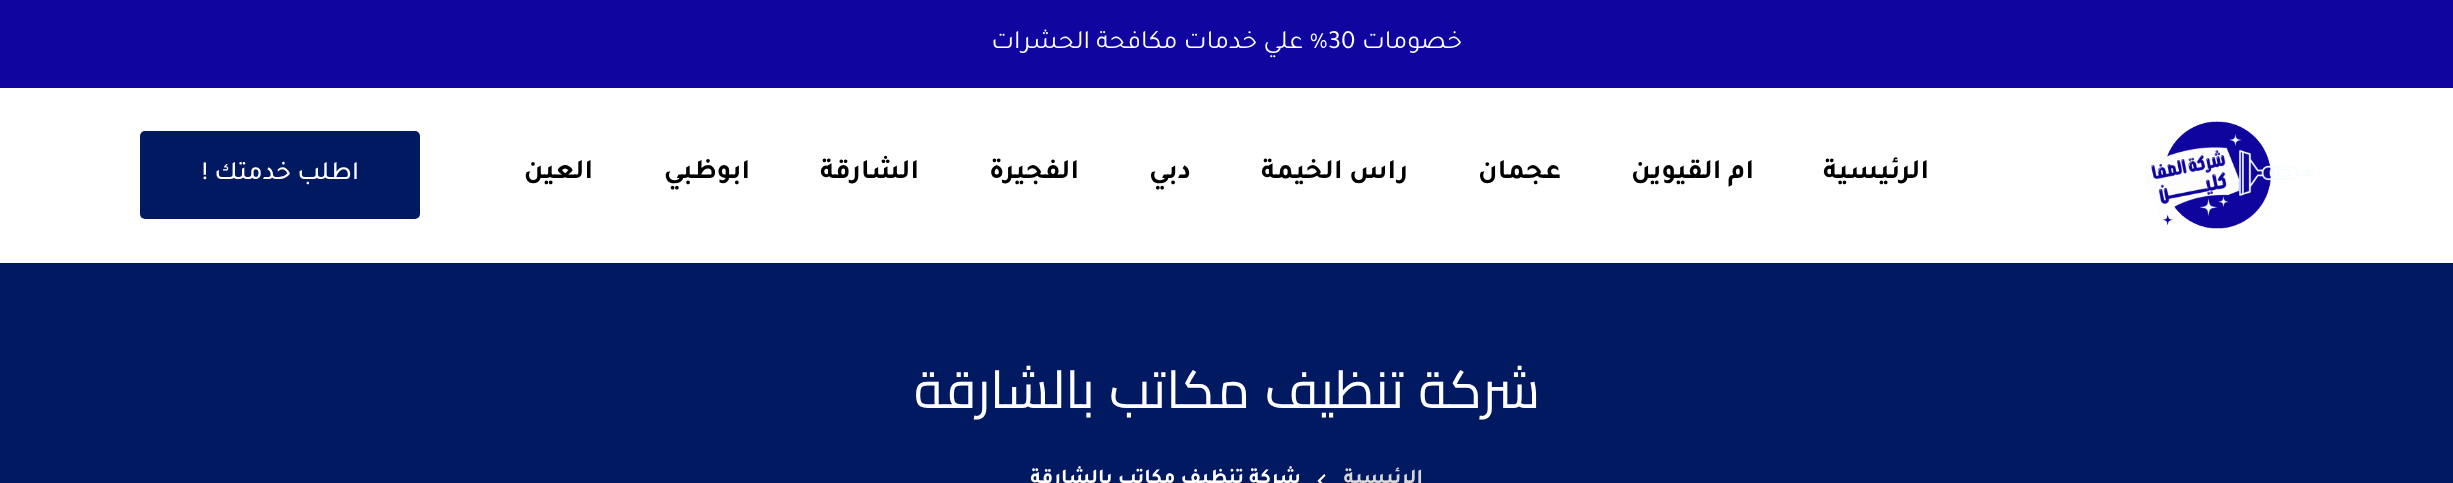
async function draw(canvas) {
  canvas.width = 2453
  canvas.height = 483
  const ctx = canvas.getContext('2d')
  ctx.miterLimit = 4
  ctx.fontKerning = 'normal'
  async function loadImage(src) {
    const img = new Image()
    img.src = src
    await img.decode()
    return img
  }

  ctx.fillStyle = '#001960'
  ctx.fillRect(0, 0, 2453, 483)
  ctx.fillStyle = '#10069f'
  ctx.fillRect(0, 0, 2453, 88)
  ctx.direction = 'rtl'
  ctx.font = '26.25px Tajawal'
  ctx.fillStyle = '#fff'
  ctx.fillText('خصومات', 1462, 48)
  ctx.direction = 'ltr'
  ctx.fillText('30', 1328, 48)
  ctx.direction = 'rtl'
  ctx.fillText('% علي خدمات مكافحة الحشرات', 1328, 48)
  ctx.fillRect(0, 88, 2453, 175)
  ctx.drawImage(await loadImage('image0.png'), 2145, 121, 169, 108)
  ctx.font = 'bold 28px Tajawal'
  ctx.fillStyle = '#000'
  ctx.fillText('الرئيسية', 1929, 178)
  ctx.fillText('ام القيوين', 1754, 178)
  ctx.fillText('عجمان', 1561, 178)
  ctx.fillText('راس الخيمة', 1408, 178)
  ctx.fillText('دبي', 1191, 178)
  ctx.fillText('الفجيرة', 1079, 178)
  ctx.fillText('الشارقة', 919, 178)
  ctx.fillText('ابوظبي', 750, 178)
  ctx.fillText('العين', 593, 178)
  ctx.fillStyle = '#001960'
  ctx.beginPath()
  ctx.roundRect(140, 131, 280, 88, 5)
  ctx.fill()
  ctx.font = '500 26.25px Tajawal'
  ctx.fillStyle = '#fff'
  ctx.fillText('اطلب خدمتك !', 359, 179)
  ctx.wordSpacing = '3px'
  ctx.font = '52.5px Cairo'
  ctx.fillText('شركة تنظيف مكاتب بالشارقة', 1540, 408)
  ctx.wordSpacing = '0px'
  ctx.font = 'bold 21px Tajawal'
  ctx.fillStyle = '#d7d7d7'
  ctx.fillText('الرئيسية', 1423, 483)
  ctx.drawImage(await loadImage('image1.png'), 1317, 474, 9, 9)
  ctx.fillStyle = '#fff'
  ctx.fillText('شركة تنظيف مكاتب بالشارقة', 1301, 483)
}

draw(document.querySelector('canvas'))
